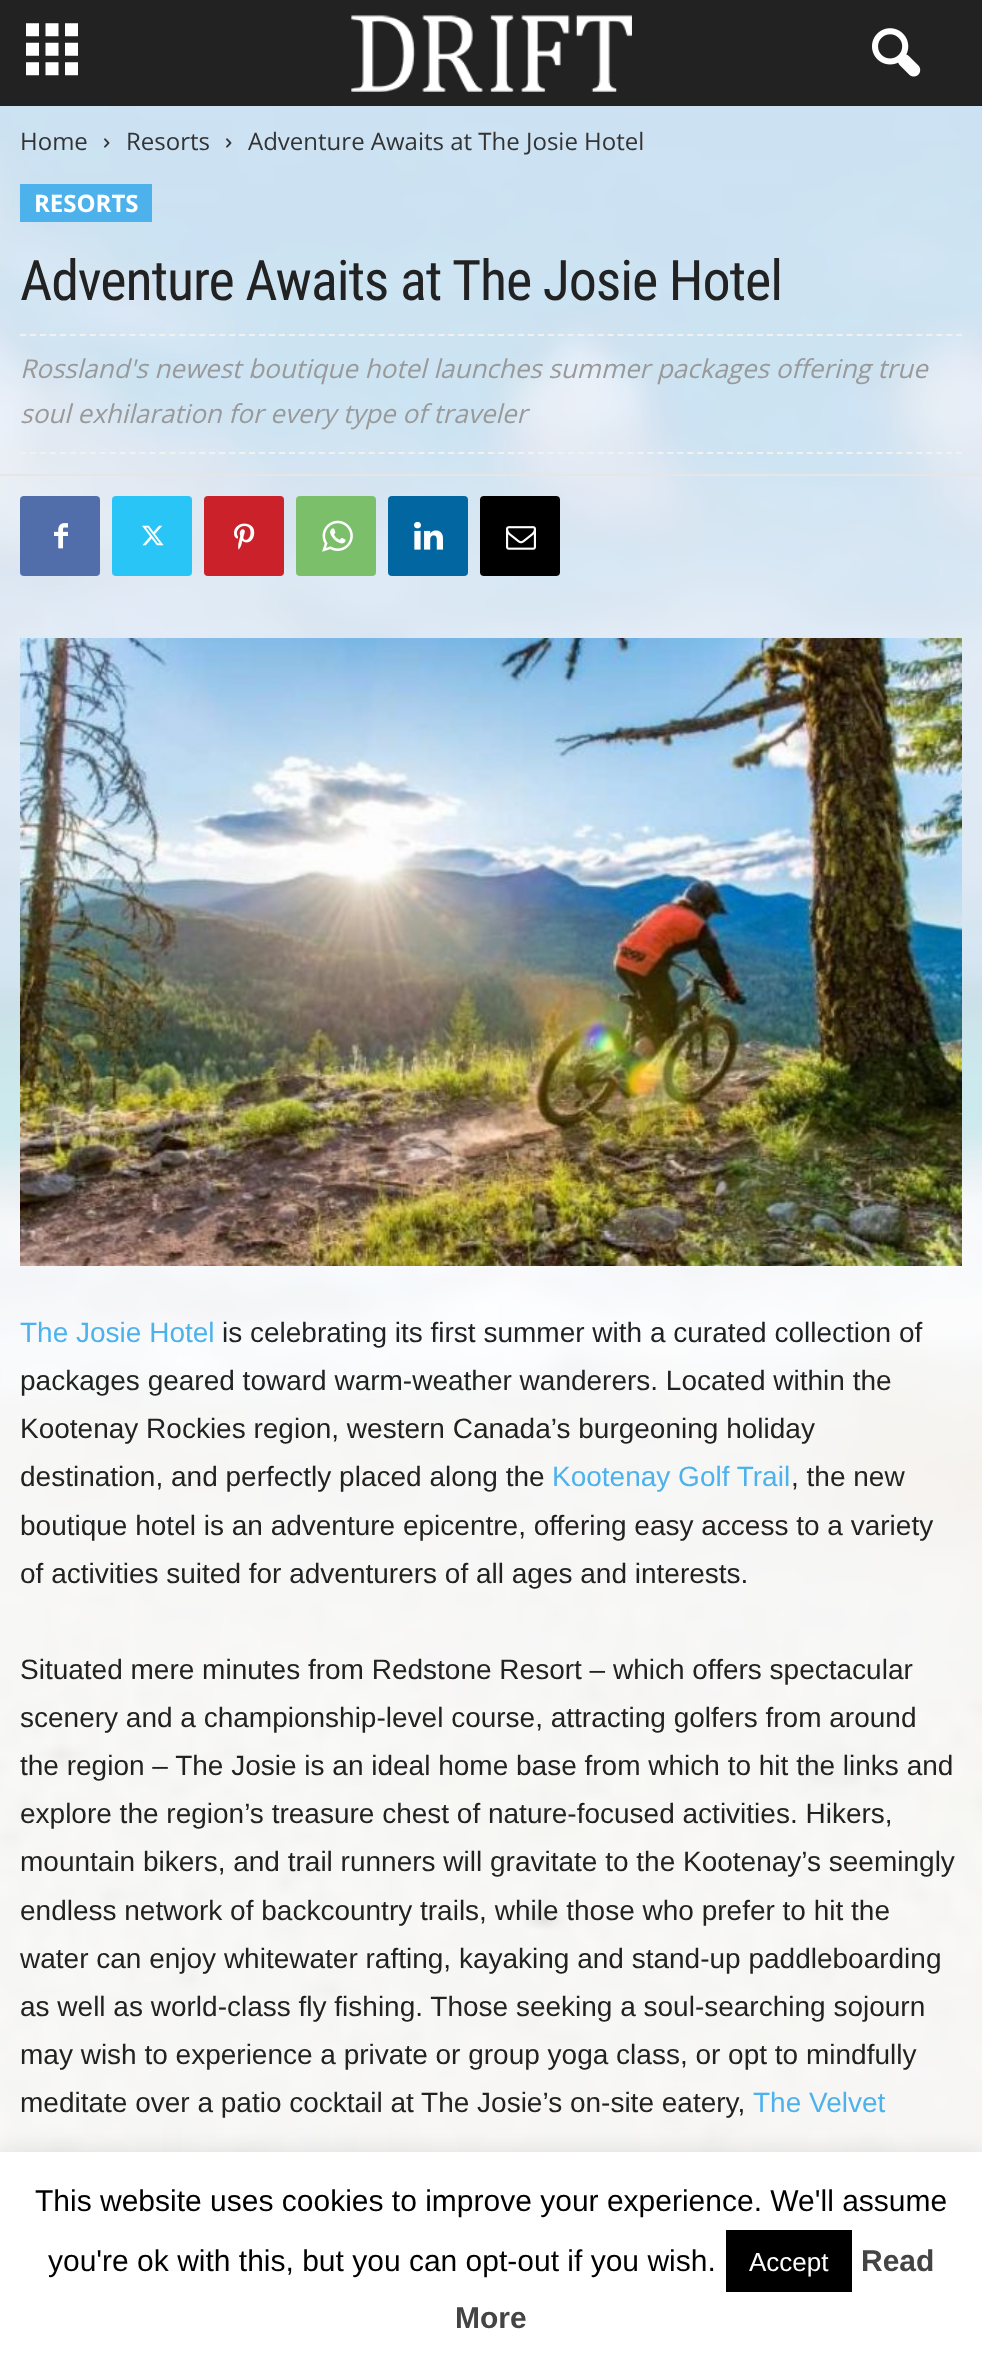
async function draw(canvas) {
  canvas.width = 982
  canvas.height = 2361
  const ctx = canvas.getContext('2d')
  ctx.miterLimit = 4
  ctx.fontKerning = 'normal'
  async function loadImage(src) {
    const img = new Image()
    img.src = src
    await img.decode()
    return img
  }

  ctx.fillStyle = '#fff'
  ctx.fillRect(0, 0, 982, 2361)
  ctx.drawImage(await loadImage('image0.png'), 0, 106, 982, 2046)
  ctx.fillStyle = '#222'
  ctx.fillRect(0, 0, 982, 106)
  ctx.drawImage(await loadImage('image1.png'), 26, 23, 52, 53)
  ctx.drawImage(await loadImage('image2.png'), 351, 15, 281, 77)
  ctx.drawImage(await loadImage('image3.png'), 872, 28, 49, 49)
  ctx.font = '24px Open Sans'
  ctx.fillStyle = '#333'
  ctx.fillText('Home', 20, 150)
  ctx.drawImage(await loadImage('image4.png'), 104, 138, 6, 10)
  ctx.fillText('Resorts', 126, 150)
  ctx.drawImage(await loadImage('image5.png'), 226, 138, 6, 10)
  ctx.fillText('Adventure Awaits at The Josie Hotel', 248, 150)
  ctx.fillStyle = '#4db2ec'
  ctx.fillRect(20, 184, 132, 38)
  ctx.font = 'bold 24px Open Sans'
  ctx.fillStyle = '#fff'
  ctx.fillText('RESORTS', 34, 212)
  ctx.letterSpacing = '-1.1px'
  ctx.font = '56px Roboto Condensed'
  ctx.fillStyle = '#222'
  ctx.fillText('Adventure Awaits at The Josie Hotel', 20, 300)
  ctx.beginPath()
  ctx.moveTo(20, 335)
  ctx.lineTo(962, 335)
  ctx.strokeStyle = '#f1f1f1'
  ctx.lineWidth = 2
  ctx.setLineDash([6, 3.96])
  ctx.stroke()
  ctx.beginPath()
  ctx.moveTo(20, 453)
  ctx.lineTo(962, 453)
  ctx.stroke()
  ctx.letterSpacing = '0px'
  ctx.font = 'italic 26px Open Sans'
  ctx.fillStyle = '#999'
  ctx.fillText('Rossland\'s newest boutique hotel launches summer packages offering true', 20, 378)
  ctx.fillText('soul exhilaration for every type of traveler', 20, 423)
  ctx.fillStyle = '#e6e6e6'
  ctx.fillRect(0, 474, 982, 2)
  ctx.fillStyle = '#516eab'
  ctx.beginPath()
  ctx.roundRect(20, 496, 80, 80, 4)
  ctx.fill()
  ctx.drawImage(await loadImage('image6.png'), 54, 523, 14, 26)
  ctx.fillStyle = '#29c5f6'
  ctx.beginPath()
  ctx.roundRect(112, 496, 80, 80, 4)
  ctx.fill()
  ctx.drawImage(await loadImage('image7.png'), 142, 525, 22, 21)
  ctx.fillStyle = '#ca212a'
  ctx.beginPath()
  ctx.roundRect(204, 496, 80, 80, 4)
  ctx.fill()
  ctx.drawImage(await loadImage('image8.png'), 234, 523, 21, 27)
  ctx.fillStyle = '#7bbf6a'
  ctx.beginPath()
  ctx.roundRect(296, 496, 80, 80, 4)
  ctx.fill()
  ctx.drawImage(await loadImage('image9.png'), 322, 520, 31, 32)
  ctx.fillStyle = '#0266a0'
  ctx.beginPath()
  ctx.roundRect(388, 496, 80, 80, 4)
  ctx.fill()
  ctx.drawImage(await loadImage('image10.png'), 414, 521, 29, 29)
  ctx.fillStyle = '#000'
  ctx.beginPath()
  ctx.roundRect(480, 496, 80, 80, 4)
  ctx.fill()
  ctx.drawImage(await loadImage('image11.png'), 506, 526, 30, 24)
  ctx.drawImage(await loadImage('image12.png'), 20, 638, 942, 628)
  ctx.font = '28px Liberation Sans'
  ctx.fillStyle = '#4db2ec'
  ctx.fillText('The Josie Hotel', 20, 1342)
  ctx.fillStyle = '#222'
  ctx.fillText('is celebrating its first summer with a curated collection of', 222, 1342)
  ctx.fillText('packages geared toward warm-weather wanderers. Located within the', 20, 1390)
  ctx.fillText('Kootenay Rockies region, western Canada’s burgeoning holiday', 20, 1438)
  ctx.fillText('destination, and perfectly placed along the', 20, 1486)
  ctx.fillStyle = '#4db2ec'
  ctx.fillText('Kootenay Golf Trail', 552, 1486)
  ctx.fillStyle = '#222'
  ctx.fillText(', the new', 791, 1486)
  ctx.fillText('boutique hotel is an adventure epicentre, offering easy access to a variety', 20, 1535)
  ctx.fillText('of activities suited for adventurers of all ages and interests.', 20, 1583)
  ctx.fillText('Situated mere minutes from Redstone Resort – which offers spectacular', 20, 1679)
  ctx.fillText('scenery and a championship-level course, attracting golfers from around', 20, 1727)
  ctx.fillText('the region – The Josie is an ideal home base from which to hit the links and', 20, 1775)
  ctx.fillText('explore the region’s treasure chest of nature-focused activities. Hikers,', 20, 1823)
  ctx.fillText('mountain bikers, and trail runners will gravitate to the Kootenay’s seemingly', 20, 1871)
  ctx.fillText('endless network of backcountry trails, while those who prefer to hit the', 20, 1920)
  ctx.fillText('water can enjoy whitewater rafting, kayaking and stand-up paddleboarding', 20, 1968)
  ctx.fillText('as well as world-class fly fishing. Those seeking a soul-searching sojourn', 20, 2016)
  ctx.fillText('may wish to experience a private or group yoga class, or opt to mindfully', 20, 2064)
  ctx.fillText('meditate over a patio cocktail at The Josie’s on-site eatery,', 20, 2112)
  ctx.fillStyle = '#4db2ec'
  ctx.fillText('The Velvet', 753, 2112)
  ctx.fillStyle = '#acabab4d'
  ctx.filter = 'blur(10px)'
  ctx.beginPath()
  ctx.rect(0, 2150, 982, 210)
  ctx.fill()
  ctx.filter = 'none'
  ctx.fillStyle = '#fff'
  ctx.fillRect(0, 2152, 982, 209)
  ctx.font = '30px Liberation Sans'
  ctx.fillStyle = '#000'
  ctx.fillText('This website uses cookies to improve your experience. We\'ll assume', 35, 2211)
  ctx.fillText('you\'re ok with this, but you can opt-out if you wish.', 48, 2271)
  ctx.fillRect(726, 2230, 126, 62)
  ctx.font = '26px Liberation Sans'
  ctx.fillStyle = '#fff'
  ctx.fillText('Accept', 749, 2271)
  ctx.font = 'bold 30px Liberation Sans'
  ctx.fillStyle = '#444'
  ctx.fillText('Read', 861, 2271)
  ctx.fillText('More', 455, 2328)
}

draw(document.querySelector('canvas'))
